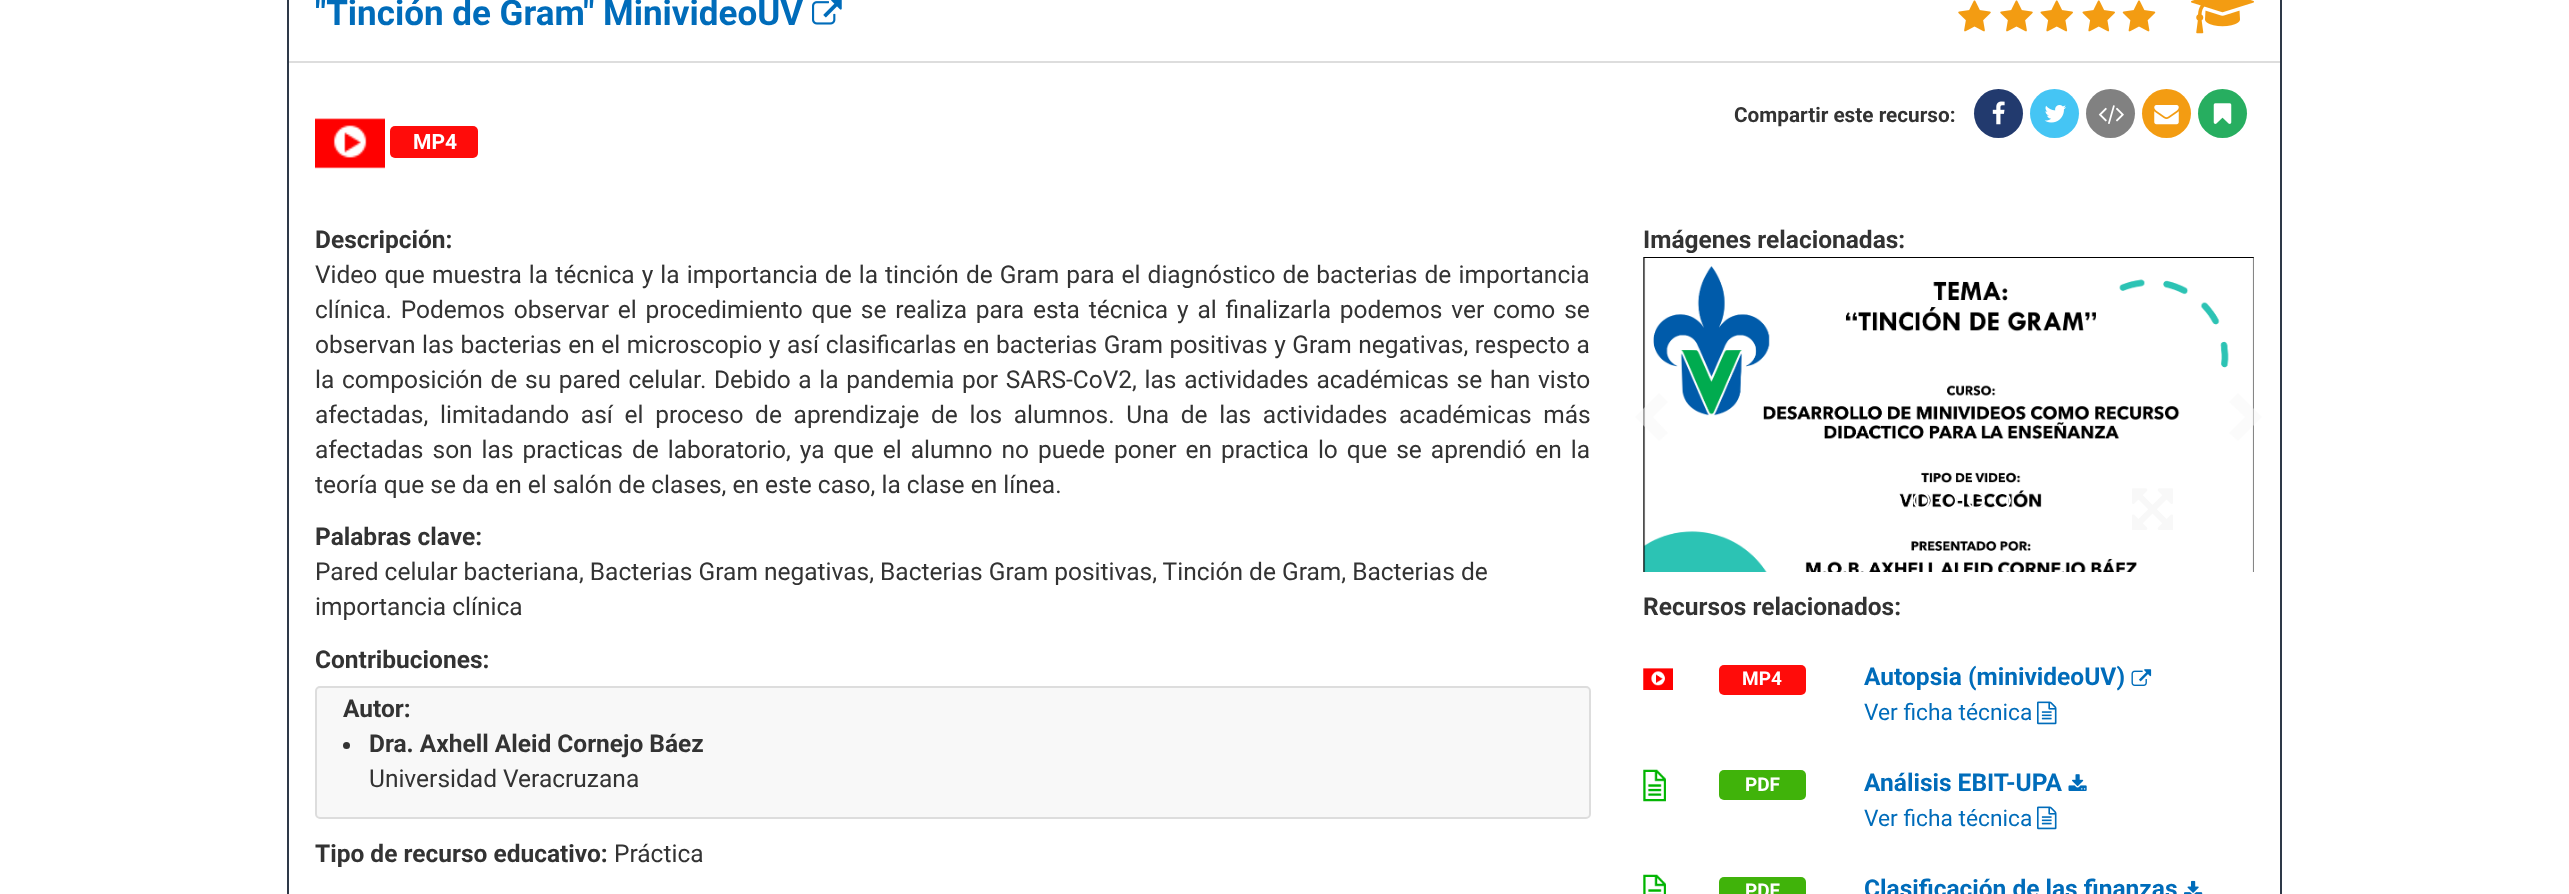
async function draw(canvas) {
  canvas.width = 2569
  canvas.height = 894
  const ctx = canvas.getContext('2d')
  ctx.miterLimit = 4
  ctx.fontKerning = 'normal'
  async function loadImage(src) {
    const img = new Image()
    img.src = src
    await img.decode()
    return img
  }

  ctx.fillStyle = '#fff'
  ctx.fillRect(0, 0, 2569, 894)
  ctx.strokeStyle = '#2e3948'
  ctx.lineWidth = 2
  ctx.strokeRect(288, -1, 1993, 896)
  ctx.fillStyle = '#ddd'
  ctx.fillRect(289, 61, 1991, 2)
  ctx.font = 'bold 35px Roboto'
  ctx.fillStyle = '#006cba'
  ctx.fillText('"Tinción de Gram" MinivideoUV', 315, 25)
  ctx.drawImage(await loadImage('image0.png'), 812, 0, 30, 25)
  ctx.drawImage(await loadImage('image1.png'), 1958, 0, 33, 32)
  ctx.drawImage(await loadImage('image1.png'), 2000, 0, 33, 32)
  ctx.drawImage(await loadImage('image2.png'), 2040, 0, 33, 32)
  ctx.drawImage(await loadImage('image2.png'), 2082, 0, 33, 32)
  ctx.drawImage(await loadImage('image3.png'), 2122, 0, 34, 32)
  ctx.drawImage(await loadImage('image4.png'), 2191, 0, 63, 34)
  ctx.font = 'bold 20.75px Roboto'
  ctx.fillStyle = '#333'
  ctx.fillText('Compartir este recurso:', 1734, 122)
  ctx.fillStyle = '#223a6e'
  ctx.beginPath()
  ctx.arc(1998.5, 113.5, 24.5, 0, 2 * Math.PI)
  ctx.fill()
  ctx.drawImage(await loadImage('image5.png'), 1992, 101, 13, 24)
  ctx.fillStyle = '#45c5f4'
  ctx.beginPath()
  ctx.arc(2054.5, 113.5, 24.5, 0, 2 * Math.PI)
  ctx.fill()
  ctx.drawImage(await loadImage('image6.png'), 2044, 105, 22, 18)
  ctx.fillStyle = '#818181'
  ctx.beginPath()
  ctx.arc(2110.5, 113.5, 24.5, 0, 2 * Math.PI)
  ctx.fill()
  ctx.drawImage(await loadImage('image7.png'), 2098, 105, 26, 19)
  ctx.fillStyle = '#f39c12'
  ctx.beginPath()
  ctx.arc(2166.5, 113.5, 24.5, 0, 2 * Math.PI)
  ctx.fill()
  ctx.drawImage(await loadImage('image8.png'), 2154, 105, 25, 20)
  ctx.fillStyle = '#27ae60'
  ctx.beginPath()
  ctx.arc(2222.5, 113.5, 24.5, 0, 2 * Math.PI)
  ctx.fill()
  ctx.drawImage(await loadImage('image9.png'), 2213, 103, 19, 21)
  ctx.drawImage(await loadImage('image10.png'), 315, 118, 70, 51)
  ctx.fillStyle = '#ff0c0a'
  ctx.beginPath()
  ctx.roundRect(390, 126, 88, 32, 5)
  ctx.fill()
  ctx.font = 'bold 21px Roboto'
  ctx.fillStyle = '#fff'
  ctx.fillText('MP4', 413, 149)
  ctx.font = 'bold 24.5px Roboto'
  ctx.fillStyle = '#333'
  ctx.fillText('Descripción:', 315, 248)
  ctx.wordSpacing = '1px'
  ctx.font = '24.5px Roboto'
  ctx.fillText('Video que muestra la técnica y la importancia de la tinción de Gram para el diagnóstico de bacterias de importancia', 315, 283)
  ctx.wordSpacing = '2.75px'
  ctx.fillText('clínica. Podemos observar el procedimiento que se realiza para esta técnica y al finalizarla podemos ver como se', 315, 318)
  ctx.wordSpacing = '0.5px'
  ctx.fillText('observan las bacterias en el microscopio y así clasificarlas en bacterias Gram positivas y Gram negativas, respecto a', 315, 353)
  ctx.wordSpacing = '1.6px'
  ctx.fillText('la composición de su pared celular. Debido a la pandemia por SARS-CoV2, las actividades académicas se han visto', 315, 388)
  ctx.wordSpacing = '5.6px'
  ctx.fillText('afectadas, limitadando así el proceso de aprendizaje de los alumnos. Una de las actividades académicas más', 315, 423)
  ctx.wordSpacing = '2.9px'
  ctx.fillText('afectadas son las practicas de laboratorio, ya que el alumno no puede poner en practica lo que se aprendió en la', 315, 458)
  ctx.wordSpacing = '0px'
  ctx.fillText('teoría que se da en el salón de clases, en este caso, la clase en línea.', 315, 493)
  ctx.font = 'bold 24.5px Roboto'
  ctx.fillText('Palabras clave:', 315, 545)
  ctx.font = '24.5px Roboto'
  ctx.fillText('Pared celular bacteriana, Bacterias Gram negativas, Bacterias Gram positivas, Tinción de Gram, Bacterias de', 315, 580)
  ctx.fillText('importancia clínica', 315, 615)
  ctx.font = 'bold 24.5px Roboto'
  ctx.fillText('Contribuciones:', 315, 668)
  ctx.fillStyle = '#f8f8f8'
  ctx.beginPath()
  ctx.roundRect(316, 687, 1274, 131, 4)
  ctx.fill()
  ctx.strokeStyle = '#ddd'
  ctx.stroke()
  ctx.fillStyle = '#333'
  ctx.fillText('Autor:', 343, 717)
  ctx.beginPath()
  ctx.arc(346.5, 745.5, 3.5, 0, 2 * Math.PI)
  ctx.fill()
  ctx.fillText('Dra. Axhell Aleid Cornejo Báez', 369, 752)
  ctx.font = '24.5px Roboto'
  ctx.fillText('Universidad Veracruzana', 369, 787)
  ctx.font = 'bold 24.5px Roboto'
  ctx.fillText('Tipo de recurso educativo:', 315, 862)
  ctx.font = '24.5px Roboto'
  ctx.fillText('Práctica', 614, 862)
  ctx.font = 'bold 24.5px Roboto'
  ctx.fillText('Imágenes relacionadas:', 1643, 248)
  ctx.drawImage(await loadImage('image11.png'), 1643, 257, 611, 315)
  ctx.fillStyle = '#f8f8f880'
  ctx.beginPath()
  ctx.moveTo(1668, 402)
  ctx.lineTo(1653, 417)
  ctx.lineTo(1668, 433)
  ctx.lineTo(1659, 441)
  ctx.lineTo(1635, 417)
  ctx.lineTo(1659, 393)
  ctx.closePath()
  ctx.fill()
  ctx.beginPath()
  ctx.moveTo(2262, 417)
  ctx.lineTo(2238, 441)
  ctx.lineTo(2229, 433)
  ctx.lineTo(2245, 417)
  ctx.lineTo(2229, 402)
  ctx.lineTo(2238, 393)
  ctx.closePath()
  ctx.fill()
  ctx.beginPath()
  ctx.arc(1893.5, 500.5, 7.5, 0, 2 * Math.PI)
  ctx.strokeStyle = '#fff'
  ctx.stroke()
  ctx.beginPath()
  ctx.arc(1921.5, 500.5, 7.5, 0, 2 * Math.PI)
  ctx.stroke()
  ctx.beginPath()
  ctx.roundRect(1940, 493, 16, 15, 7.5)
  ctx.stroke()
  ctx.beginPath()
  ctx.roundRect(1968, 493, 16, 15, 7.5)
  ctx.stroke()
  ctx.beginPath()
  ctx.roundRect(1994, 493, 16, 15, 7.5)
  ctx.stroke()
  ctx.drawImage(await loadImage('image12.png'), 2132, 488, 41, 42)
  ctx.fillStyle = '#333'
  ctx.fillText('Recursos relacionados:', 1643, 615)
  ctx.drawImage(await loadImage('image13.png'), 1643, 668, 30, 22)
  ctx.fillStyle = '#ff0c0a'
  ctx.beginPath()
  ctx.roundRect(1719, 665, 87, 30, 5)
  ctx.fill()
  ctx.font = 'bold 19px Roboto'
  ctx.fillStyle = '#fff'
  ctx.fillText('MP4', 1742, 685)
  ctx.font = 'bold 24.5px Roboto'
  ctx.fillStyle = '#006cba'
  ctx.fillText('Autopsia (minivideoUV)', 1864, 685)
  ctx.drawImage(await loadImage('image14.png'), 2131, 669, 21, 17)
  ctx.font = '22.75px Roboto'
  ctx.fillText('Ver ficha técnica', 1864, 720)
  ctx.drawImage(await loadImage('image15.png'), 2037, 701, 20, 24)
  ctx.drawImage(await loadImage('image16.png'), 1643, 769, 23, 33)
  ctx.fillStyle = '#40b30a'
  ctx.beginPath()
  ctx.roundRect(1719, 770, 87, 30, 5)
  ctx.fill()
  ctx.font = 'bold 19px Roboto'
  ctx.fillStyle = '#fff'
  ctx.fillText('PDF', 1745, 791)
  ctx.font = 'bold 24.5px Roboto'
  ctx.fillStyle = '#006cba'
  ctx.fillText('Análisis EBIT-UPA', 1864, 791)
  ctx.drawImage(await loadImage('image17.png'), 2068, 774, 19, 17)
  ctx.font = '22.75px Roboto'
  ctx.fillText('Ver ficha técnica', 1864, 826)
  ctx.drawImage(await loadImage('image15.png'), 2037, 806, 20, 24)
  ctx.drawImage(await loadImage('image18.png'), 1643, 874, 23, 20)
  ctx.fillStyle = '#40b30a'
  ctx.beginPath()
  ctx.roundRect(1719, 877, 87, 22, 5)
  ctx.fill()
  ctx.font = 'bold 19px Roboto'
  ctx.fillStyle = '#fff'
  ctx.fillText('PDF', 1745, 897)
  ctx.font = 'bold 24.5px Roboto'
  ctx.fillStyle = '#006cba'
  ctx.fillText('Clasificación de las finanzas', 1864, 897)
  ctx.drawImage(await loadImage('image19.png'), 2184, 880, 19, 14)
}

draw(document.querySelector('canvas'))
